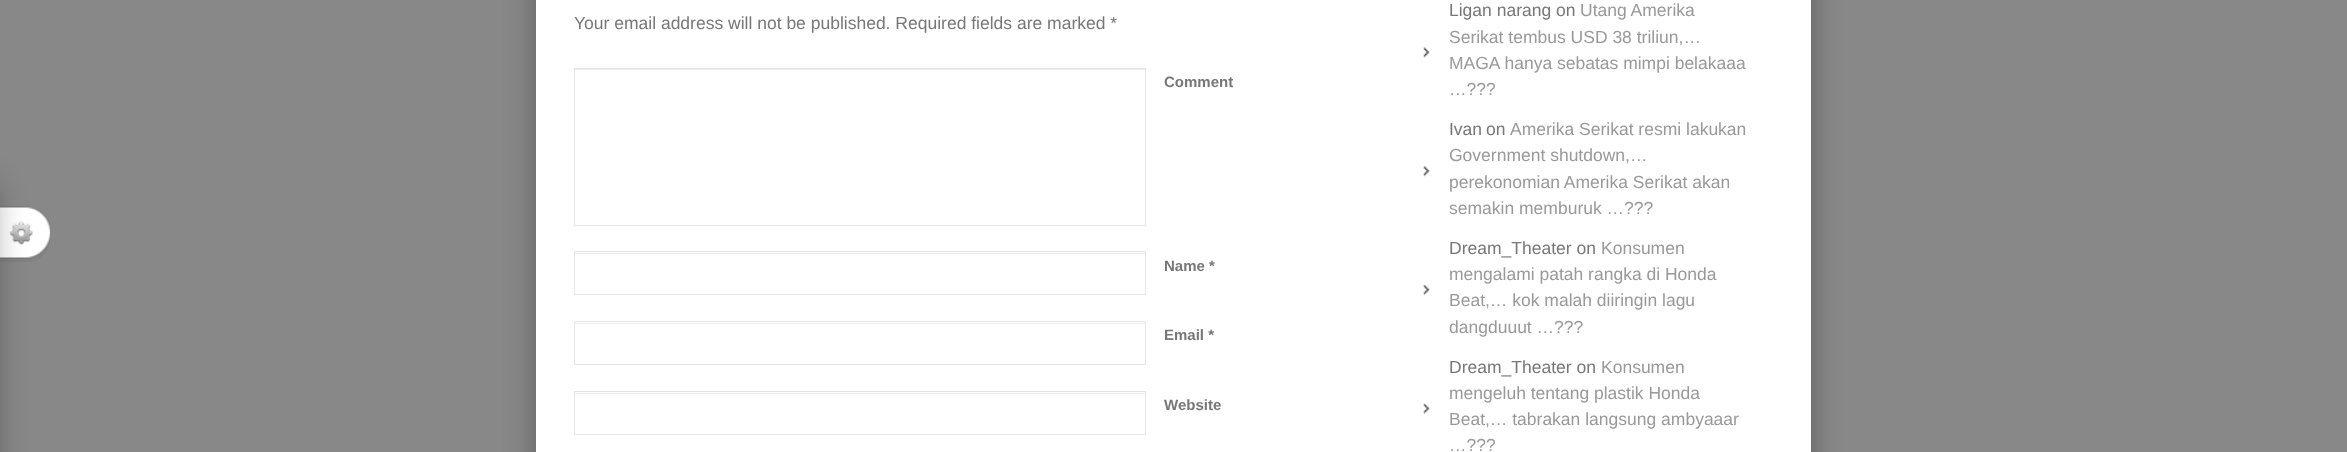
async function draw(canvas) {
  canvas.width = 2347
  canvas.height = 452
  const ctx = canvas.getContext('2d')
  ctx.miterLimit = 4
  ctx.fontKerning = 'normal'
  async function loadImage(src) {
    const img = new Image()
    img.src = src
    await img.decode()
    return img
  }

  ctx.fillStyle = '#888'
  ctx.fillRect(0, 0, 2347, 452)
  ctx.fillStyle = '#0000004d'
  ctx.filter = 'blur(15.5px)'
  ctx.beginPath()
  ctx.rect(536, -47, 1275, 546)
  ctx.fill()
  ctx.filter = 'none'
  ctx.fillStyle = '#fff'
  ctx.fillRect(536, 0, 1275, 452)
  ctx.drawImage(await loadImage('image0.png'), 0, 206, 50, 56)
  ctx.fillStyle = '#0000004d'
  ctx.filter = 'blur(15.5px)'
  ctx.beginPath()
  ctx.rect(-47, 186, 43, 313)
  ctx.fill()
  ctx.filter = 'none'
  ctx.font = '17.5px Liberation Sans'
  ctx.fillStyle = '#777'
  ctx.fillText('Your email address will not be published. Required fields are marked *', 574, 29)
  ctx.fillStyle = '#ececec'
  ctx.fillRect(575, 69, 570, 1)
  ctx.strokeStyle = '#e5e5e5'
  ctx.strokeRect(574.5, 68.5, 571, 157)
  ctx.font = 'bold 15px Liberation Sans'
  ctx.fillStyle = '#777'
  ctx.fillText('Comment', 1164, 87)
  ctx.fillStyle = '#ececec'
  ctx.fillRect(575, 253, 570, 1)
  ctx.strokeRect(574.5, 251.5, 571, 43)
  ctx.fillStyle = '#777'
  ctx.fillText('Name *', 1164, 271)
  ctx.fillStyle = '#ececec'
  ctx.fillRect(575, 323, 570, 1)
  ctx.strokeRect(574.5, 321.5, 571, 43)
  ctx.fillStyle = '#777'
  ctx.fillText('Email *', 1164, 340)
  ctx.fillStyle = '#ececec'
  ctx.fillRect(575, 393, 570, 1)
  ctx.strokeRect(574.5, 391.5, 571, 43)
  ctx.fillStyle = '#777'
  ctx.fillText('Website', 1164, 410)
  ctx.drawImage(await loadImage('image1.png'), 1423, 47, 7, 11)
  ctx.font = '17.5px Liberation Sans'
  ctx.fillText('Ligan narang on', 1449, 16)
  ctx.fillStyle = '#999'
  ctx.fillText('Utang Amerika', 1580, 16)
  ctx.fillText('Serikat tembus USD 38 triliun,…', 1449, 43)
  ctx.fillText('MAGA hanya sebatas mimpi belakaaa', 1449, 69)
  ctx.fillText('…???', 1449, 95)
  ctx.drawImage(await loadImage('image2.png'), 1423, 166, 7, 11)
  ctx.fillStyle = '#777'
  ctx.fillText('Ivan', 1449, 135)
  ctx.fillText('on', 1486, 135)
  ctx.fillStyle = '#999'
  ctx.fillText('Amerika Serikat resmi lakukan', 1510, 135)
  ctx.fillText('Government shutdown,…', 1449, 161)
  ctx.fillText('perekonomian Amerika Serikat akan', 1449, 188)
  ctx.fillText('semakin memburuk …???', 1449, 214)
  ctx.drawImage(await loadImage('image3.png'), 1423, 285, 7, 10)
  ctx.fillStyle = '#777'
  ctx.fillText('Dream_Theater on', 1449, 254)
  ctx.fillStyle = '#999'
  ctx.fillText('Konsumen', 1601, 254)
  ctx.fillText('mengalami patah rangka di Honda', 1449, 280)
  ctx.fillText('Beat,… kok malah diiringin lagu', 1449, 306)
  ctx.fillText('dangduuut …???', 1449, 333)
  ctx.drawImage(await loadImage('image4.png'), 1423, 403, 7, 11)
  ctx.fillStyle = '#777'
  ctx.fillText('Dream_Theater on', 1449, 373)
  ctx.fillStyle = '#999'
  ctx.fillText('Konsumen', 1601, 373)
  ctx.fillText('mengeluh tentang plastik Honda', 1449, 399)
  ctx.fillText('Beat,… tabrakan langsung ambyaaar', 1449, 425)
  ctx.fillText('…???', 1449, 451)
}

draw(document.querySelector('canvas'))
